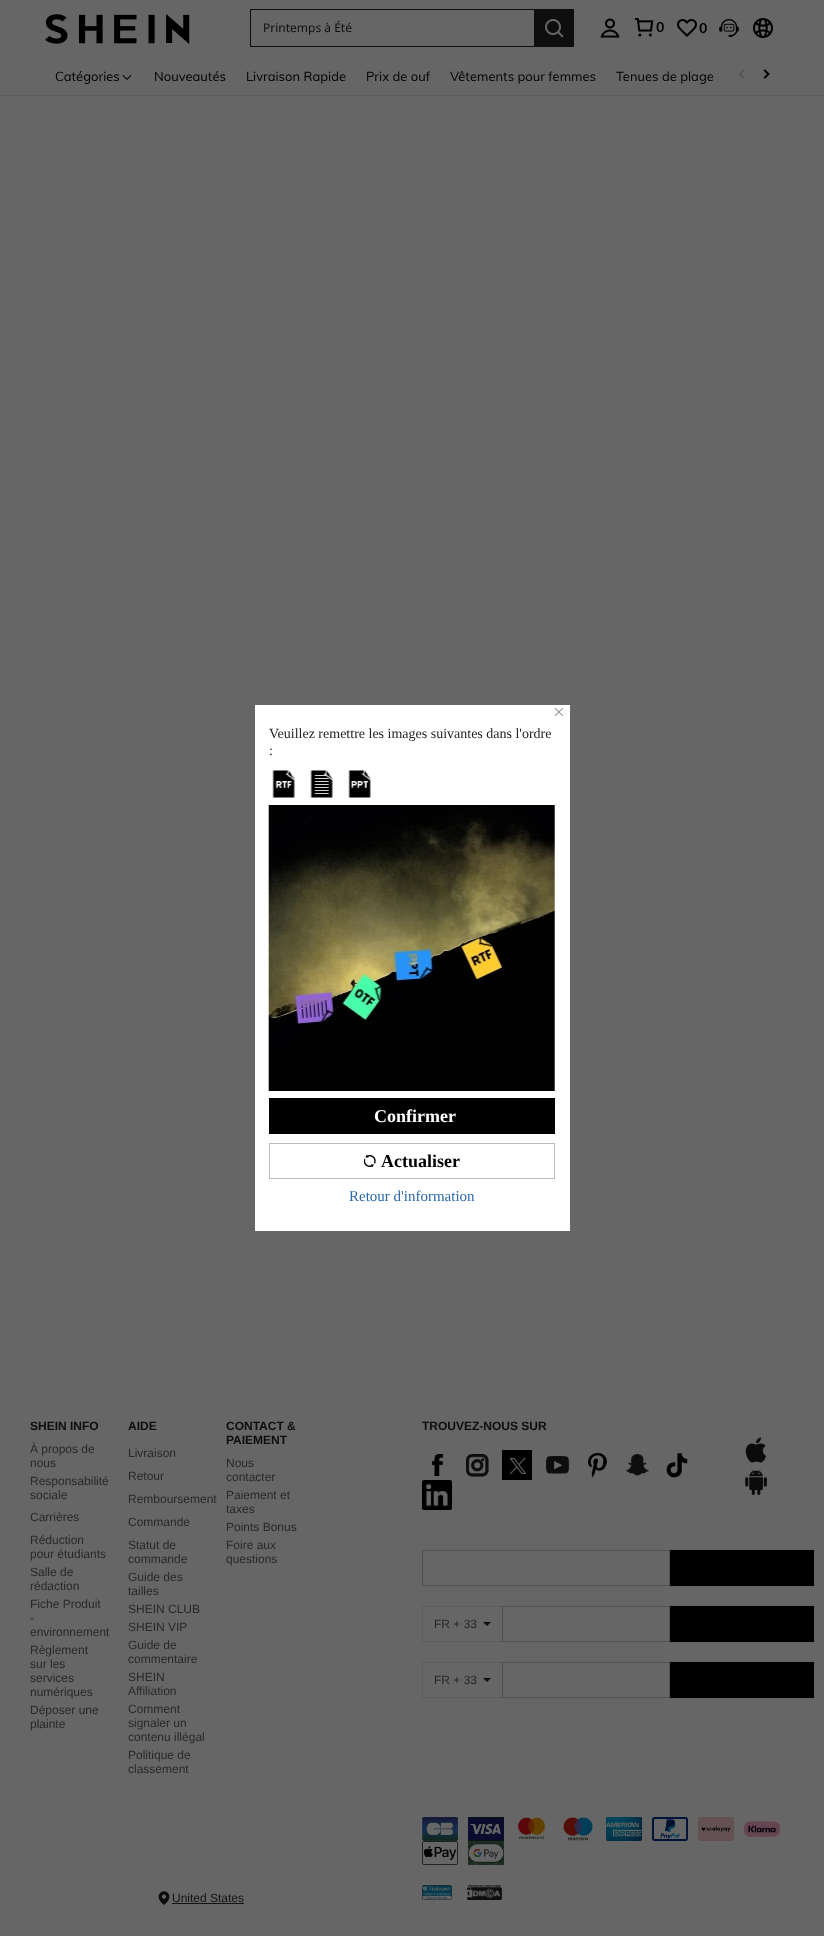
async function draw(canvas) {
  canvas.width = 824
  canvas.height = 1936
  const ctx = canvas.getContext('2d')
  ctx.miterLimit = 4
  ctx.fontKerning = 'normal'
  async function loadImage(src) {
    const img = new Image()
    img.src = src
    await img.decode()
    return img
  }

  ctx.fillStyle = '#666'
  ctx.fillRect(0, 0, 824, 1936)
  ctx.drawImage(await loadImage('image0.png'), 45, 14, 145, 30)
  ctx.fillStyle = '#0e0e0e'
  ctx.fillRect(250, 9, 284, 1)
  ctx.fillRect(250, 46, 284, 1)
  ctx.fillRect(250, 9, 1, 38)
  ctx.font = '12px Noto Sans'
  ctx.fillText('Printemps à Été', 263, 32)
  ctx.fillRect(534, 9, 40, 38)
  ctx.drawImage(await loadImage('image1.png'), 545, 19, 19, 19)
  ctx.drawImage(await loadImage('image2.png'), 600, 18, 20, 20)
  ctx.drawImage(await loadImage('image3.png'), 635, 18, 19, 19)
  ctx.font = 'bold 14px Muli'
  ctx.fillStyle = '#000'
  ctx.fillText('0', 656, 32)
  ctx.drawImage(await loadImage('image4.png'), 677, 19, 20, 18)
  ctx.fillText('0', 699, 33)
  ctx.drawImage(await loadImage('image5.png'), 719, 19, 20, 19)
  ctx.drawImage(await loadImage('image6.png'), 753, 18, 20, 20)
  ctx.fillStyle = '#5c5c5c'
  ctx.fillRect(0, 95, 824, 1)
  ctx.font = '13px Muli'
  ctx.fillStyle = '#000'
  ctx.fillText('Catégories', 55, 81)
  ctx.drawImage(await loadImage('image7.png'), 122, 75, 10, 5)
  ctx.fillText('Nouveautés', 154, 81)
  ctx.fillText('Livraison Rapide', 246, 81)
  ctx.fillText('Prix de ouf', 366, 81)
  ctx.fillText('Vêtements pour femmes', 450, 81)
  ctx.fillText('Tenues de plage', 616, 81)
  ctx.drawImage(await loadImage('image8.png'), 738, 69, 7, 10)
  ctx.drawImage(await loadImage('image9.png'), 763, 69, 7, 10)
  ctx.font = 'bold 12px Liberation Sans'
  ctx.fillStyle = '#0e0e0e'
  ctx.fillText('SHEIN INFO', 30, 1430)
  ctx.font = '12px Liberation Sans'
  ctx.fillStyle = '#292929'
  ctx.fillText('À propos de', 30, 1453)
  ctx.fillText('nous', 30, 1467)
  ctx.fillText('Responsabilité', 30, 1485)
  ctx.fillText('sociale', 30, 1499)
  ctx.fillText('Carrières', 30, 1521)
  ctx.fillText('Réduction', 30, 1544)
  ctx.fillText('pour étudiants', 30, 1558)
  ctx.fillText('Salle de', 30, 1576)
  ctx.fillText('rédaction', 30, 1590)
  ctx.fillText('Fiche Produit', 30, 1608)
  ctx.fillText('-', 30, 1622)
  ctx.fillText('environnement', 30, 1636)
  ctx.fillText('Règlement', 30, 1654)
  ctx.fillText('sur les', 30, 1668)
  ctx.fillText('services', 30, 1682)
  ctx.fillText('numériques', 30, 1696)
  ctx.fillText('Déposer une', 30, 1714)
  ctx.fillText('plainte', 30, 1728)
  ctx.font = 'bold 12px Liberation Sans'
  ctx.fillStyle = '#0e0e0e'
  ctx.fillText('AIDE', 128, 1430)
  ctx.font = '12px Liberation Sans'
  ctx.fillStyle = '#292929'
  ctx.fillText('Livraison', 128, 1457)
  ctx.fillText('Retour', 128, 1480)
  ctx.fillText('Remboursement', 128, 1503)
  ctx.fillText('Commande', 128, 1526)
  ctx.fillText('Statut de', 128, 1549)
  ctx.fillText('commande', 128, 1563)
  ctx.fillText('Guide des', 128, 1581)
  ctx.fillText('tailles', 128, 1595)
  ctx.fillText('SHEIN CLUB', 128, 1613)
  ctx.fillText('SHEIN VIP', 128, 1631)
  ctx.fillText('Guide de', 128, 1649)
  ctx.fillText('commentaire', 128, 1663)
  ctx.fillText('SHEIN', 128, 1681)
  ctx.fillText('Affiliation', 128, 1695)
  ctx.fillText('Comment', 128, 1713)
  ctx.fillText('signaler un', 128, 1727)
  ctx.fillText('contenu illégal', 128, 1741)
  ctx.fillText('Politique de', 128, 1759)
  ctx.fillText('classement', 128, 1773)
  ctx.font = 'bold 12px Liberation Sans'
  ctx.fillStyle = '#0e0e0e'
  ctx.fillText('CONTACT &', 226, 1430)
  ctx.fillText('PAIEMENT', 226, 1444)
  ctx.font = '12px Liberation Sans'
  ctx.fillStyle = '#292929'
  ctx.fillText('Nous', 226, 1467)
  ctx.fillText('contacter', 226, 1481)
  ctx.fillText('Paiement et', 226, 1499)
  ctx.fillText('taxes', 226, 1513)
  ctx.fillText('Points Bonus', 226, 1531)
  ctx.fillText('Foire aux', 226, 1549)
  ctx.fillText('questions', 226, 1563)
  ctx.font = 'bold 12px Liberation Sans'
  ctx.fillStyle = '#0e0e0e'
  ctx.fillText('TROUVEZ-NOUS SUR', 422, 1430)
  ctx.drawImage(await loadImage('image10.png'), 432, 1454, 12, 22)
  ctx.drawImage(await loadImage('image11.png'), 466, 1454, 23, 23)
  ctx.drawImage(await loadImage('image12.png'), 502, 1450, 30, 30)
  ctx.drawImage(await loadImage('image13.png'), 546, 1456, 24, 18)
  ctx.drawImage(await loadImage('image14.png'), 588, 1452, 20, 26)
  ctx.drawImage(await loadImage('image15.png'), 626, 1454, 23, 22)
  ctx.drawImage(await loadImage('image16.png'), 666, 1453, 22, 25)
  ctx.drawImage(await loadImage('image17.png'), 422, 1480, 30, 30)
  ctx.drawImage(await loadImage('image18.png'), 745, 1437, 22, 26)
  ctx.drawImage(await loadImage('image19.png'), 745, 1469, 22, 26)
  ctx.strokeStyle = '#525252'
  ctx.strokeRect(422.5, 1550.5, 247, 35)
  ctx.fillStyle = '#000'
  ctx.fillRect(670, 1550, 144, 36)
  ctx.fillStyle = '#5c5c5c'
  ctx.fillRect(422, 1606, 80, 1)
  ctx.fillRect(422, 1641, 80, 1)
  ctx.fillRect(422, 1606, 1, 36)
  ctx.font = '12px Liberation Sans'
  ctx.fillStyle = '#292929'
  ctx.fillText('FR + 33', 434, 1628)
  ctx.fillStyle = '#0e0e0e'
  ctx.beginPath()
  ctx.moveTo(483, 1622)
  ctx.lineTo(491, 1622)
  ctx.lineTo(487, 1626)
  ctx.closePath()
  ctx.fill()
  ctx.strokeRect(502.5, 1606.5, 167, 35)
  ctx.fillStyle = '#000'
  ctx.fillRect(670, 1606, 144, 36)
  ctx.fillStyle = '#5c5c5c'
  ctx.fillRect(422, 1662, 80, 1)
  ctx.fillRect(422, 1697, 80, 1)
  ctx.fillRect(422, 1662, 1, 36)
  ctx.fillStyle = '#292929'
  ctx.fillText('FR + 33', 434, 1684)
  ctx.fillStyle = '#0e0e0e'
  ctx.beginPath()
  ctx.moveTo(483, 1678)
  ctx.lineTo(491, 1678)
  ctx.lineTo(487, 1682)
  ctx.closePath()
  ctx.fill()
  ctx.strokeRect(502.5, 1662.5, 167, 35)
  ctx.fillStyle = '#000'
  ctx.fillRect(670, 1662, 144, 36)
  ctx.drawImage(await loadImage('image20.png'), 422, 1817, 36, 24)
  ctx.drawImage(await loadImage('image21.png'), 468, 1817, 36, 24)
  ctx.drawImage(await loadImage('image22.png'), 514, 1817, 36, 24)
  ctx.drawImage(await loadImage('image23.png'), 560, 1817, 36, 24)
  ctx.drawImage(await loadImage('image24.png'), 606, 1817, 36, 24)
  ctx.drawImage(await loadImage('image25.png'), 652, 1817, 36, 24)
  ctx.drawImage(await loadImage('image26.png'), 698, 1817, 36, 24)
  ctx.drawImage(await loadImage('image27.png'), 744, 1821, 36, 16)
  ctx.drawImage(await loadImage('image28.png'), 422, 1841, 36, 24)
  ctx.drawImage(await loadImage('image29.png'), 468, 1841, 36, 24)
  ctx.drawImage(await loadImage('image30.png'), 158, 1891, 12, 14)
  ctx.fillStyle = '#141414'
  ctx.fillText('United States', 172, 1902)
  ctx.fillRect(172, 1903, 72, 1)
  ctx.drawImage(await loadImage('image31.png'), 422, 1885, 30, 15)
  ctx.drawImage(await loadImage('image32.png'), 467, 1885, 35, 15)
  ctx.fillStyle = '#fff'
  ctx.fillRect(255, 705, 315, 526)
  ctx.font = '21px Liberation Serif'
  ctx.fillStyle = '#959595'
  ctx.fillText('×', 553, 719)
  ctx.font = '14px Liberation Serif'
  ctx.fillStyle = '#222'
  ctx.fillText('Veuillez remettre les images suivantes dans l\'ordre', 269, 738)
  ctx.fillText(':', 269, 755)
  ctx.drawImage(await loadImage('image33.png'), 272, 770, 99, 28)
  ctx.drawImage(await loadImage('image34.png'), 268, 805, 287, 286)
  ctx.fillStyle = '#000'
  ctx.fillRect(269, 1098, 286, 36)
  ctx.font = 'bold 18px Liberation Serif'
  ctx.fillStyle = '#fff'
  ctx.fillText('Confirmer', 374, 1122)
  ctx.strokeStyle = '#bbb'
  ctx.strokeRect(269.5, 1143.5, 285, 35)
  ctx.drawImage(await loadImage('image35.png'), 364, 1154, 12, 14)
  ctx.fillStyle = '#000'
  ctx.fillText('Actualiser', 381, 1167)
  ctx.font = '15px Liberation Serif'
  ctx.fillStyle = '#2d68a8'
  ctx.fillText('Retour d\'information', 349, 1201)
}

draw(document.querySelector('canvas'))
